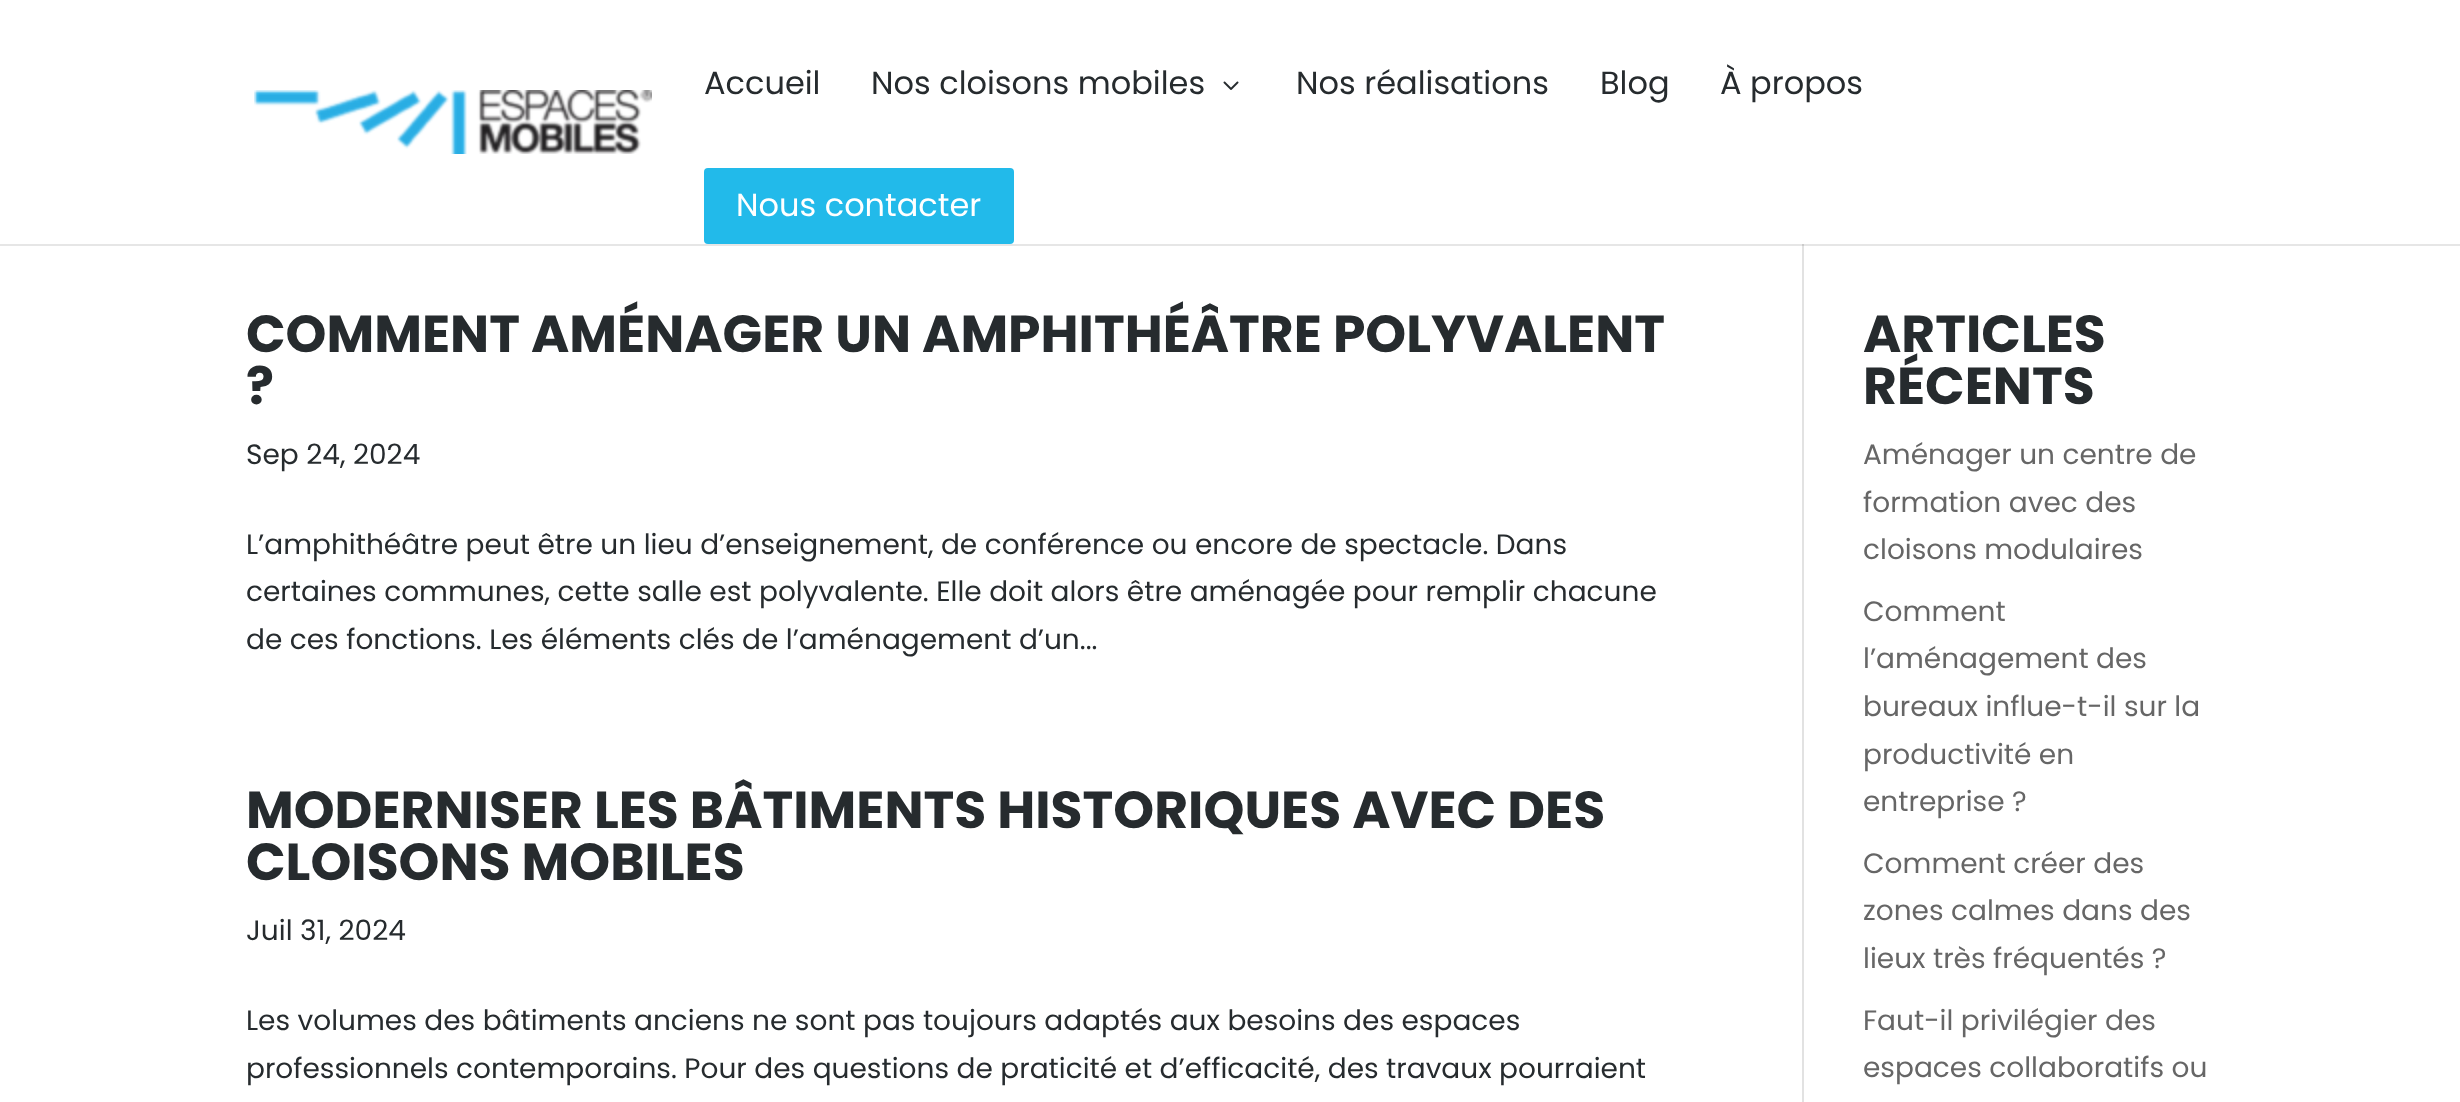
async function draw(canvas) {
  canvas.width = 2460
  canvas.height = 1102
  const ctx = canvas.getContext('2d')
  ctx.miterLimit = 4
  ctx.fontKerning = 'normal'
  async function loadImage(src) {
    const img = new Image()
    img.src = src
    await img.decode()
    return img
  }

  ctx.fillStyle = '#fff'
  ctx.fillRect(0, 0, 2460, 1102)
  ctx.fillStyle = '#e6e6e6'
  ctx.fillRect(0, 244, 2460, 2)
  ctx.drawImage(await loadImage('image0.png'), 254, 90, 398, 64)
  ctx.font = '32px Poppins'
  ctx.fillStyle = '#262b2e'
  ctx.fillText('Accueil', 704, 94)
  ctx.fillText('Nos cloisons mobiles', 871, 94)
  ctx.drawImage(await loadImage('image1.png'), 1223, 81, 16, 9)
  ctx.fillText('Nos réalisations', 1296, 94)
  ctx.fillText('Blog', 1600, 94)
  ctx.fillText('À propos', 1720, 94)
  ctx.fillStyle = '#22baea'
  ctx.beginPath()
  ctx.roundRect(704, 168, 310, 76, 4)
  ctx.fill()
  ctx.fillStyle = '#fff'
  ctx.fillText('Nous contacter', 736, 216)
  ctx.fillStyle = '#e2e2e2'
  ctx.fillRect(1802, 246, 2, 856)
  ctx.fillStyle = '#cbcbcb'
  ctx.fillRect(1802, 244, 2, 2)
  ctx.font = 'bold 52px Poppins'
  ctx.fillStyle = '#262b2e'
  ctx.fillText('COMMENT AMÉNAGER UN AMPHITHÉÂTRE POLYVALENT', 246, 352)
  ctx.fillText('?', 246, 404)
  ctx.font = '28px Poppins'
  ctx.fillText('Sep 24, 2024', 246, 464)
  ctx.fillText('L’amphithéâtre peut être un lieu d’enseignement, de conférence ou encore de spectacle. Dans', 246, 554)
  ctx.fillText('certaines communes, cette salle est polyvalente. Elle doit alors être aménagée pour remplir chacune', 246, 601)
  ctx.fillText('de ces fonctions. Les éléments clés de l’aménagement d’un...', 246, 649)
  ctx.font = 'bold 52px Poppins'
  ctx.fillText('MODERNISER LES BÂTIMENTS HISTORIQUES AVEC DES', 246, 828)
  ctx.fillText('CLOISONS MOBILES', 246, 880)
  ctx.font = '28px Poppins'
  ctx.fillText('Juil 31, 2024', 246, 940)
  ctx.fillText('Les volumes des bâtiments anciens ne sont pas toujours adaptés aux besoins des espaces', 246, 1030)
  ctx.fillText('professionnels contemporains. Pour des questions de praticité et d’efficacité, des travaux pourraient', 246, 1078)
  ctx.font = 'bold 52px Poppins'
  ctx.fillText('ARTICLES', 1863, 352)
  ctx.fillText('RÉCENTS', 1863, 404)
  ctx.font = '28px Poppins'
  ctx.fillStyle = '#666'
  ctx.fillText('Aménager un centre de', 1863, 464)
  ctx.fillText('formation avec des', 1863, 512)
  ctx.fillText('cloisons modulaires', 1863, 559)
  ctx.fillText('Comment', 1863, 621)
  ctx.fillText('l’aménagement des', 1863, 668)
  ctx.fillText('bureaux influe-t-il sur la', 1863, 716)
  ctx.fillText('productivité en', 1863, 764)
  ctx.fillText('entreprise ?', 1863, 811)
  ctx.fillText('Comment créer des', 1863, 873)
  ctx.fillText('zones calmes dans des', 1863, 920)
  ctx.fillText('lieux très fréquentés ?', 1863, 968)
  ctx.fillText('Faut-il privilégier des', 1863, 1030)
  ctx.fillText('espaces collaboratifs ou', 1863, 1077)
}

draw(document.querySelector('canvas'))
